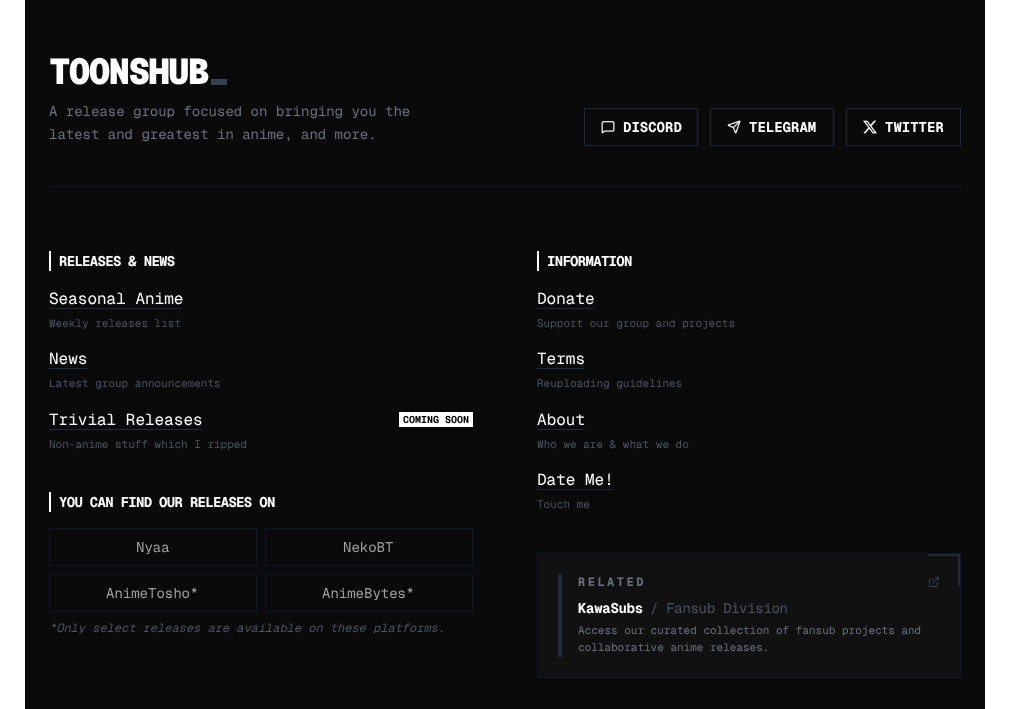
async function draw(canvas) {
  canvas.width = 1009
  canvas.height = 709
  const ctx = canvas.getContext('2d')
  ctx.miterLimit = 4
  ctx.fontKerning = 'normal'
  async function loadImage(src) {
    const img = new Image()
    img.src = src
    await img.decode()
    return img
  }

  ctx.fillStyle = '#fff'
  ctx.fillRect(0, 0, 1009, 709)
  ctx.fillStyle = '#0a0a0a'
  ctx.fillRect(25, 0, 960, 709)
  ctx.fillStyle = '#101828'
  ctx.fillRect(49, 186, 912, 1)
  ctx.letterSpacing = '-1.75px'
  ctx.font = '900 36px Geist Mono'
  ctx.fillStyle = '#fff'
  ctx.fillText('TOONSHUB', 49, 84)
  ctx.fillStyle = '#364153'
  ctx.fillRect(211, 79, 16, 6)
  ctx.letterSpacing = '0px'
  ctx.font = '14px Geist Mono'
  ctx.fillStyle = '#6a7282'
  ctx.fillText('A release group focused on bringing you the', 49, 116)
  ctx.fillText('latest and greatest in anime, and more.', 49, 139)
  ctx.strokeStyle = '#1e2939'
  ctx.strokeRect(584.5, 108.5, 113, 37)
  ctx.drawImage(await loadImage('image0.png'), 601, 121, 14, 13)
  ctx.font = 'bold 14px Geist Mono'
  ctx.fillStyle = '#fff'
  ctx.fillText('DISCORD', 623, 132)
  ctx.strokeRect(710.5, 108.5, 123, 37)
  ctx.drawImage(await loadImage('image1.png'), 727, 120, 14, 14)
  ctx.fillText('TELEGRAM', 749, 132)
  ctx.strokeRect(846.5, 108.5, 114, 37)
  ctx.drawImage(await loadImage('image2.png'), 863, 120, 14, 14)
  ctx.fillText('TWITTER', 885, 132)
  ctx.fillRect(49, 251, 2, 20)
  ctx.letterSpacing = '-0.7px'
  ctx.fillText('RELEASES & NEWS', 59, 266)
  ctx.letterSpacing = '0px'
  ctx.font = '16px Geist Mono'
  ctx.fillText('Seasonal Anime', 49, 304)
  ctx.fillStyle = '#1e2939'
  ctx.fillRect(49, 308, 134, 1)
  ctx.font = '11px Geist Mono'
  ctx.fillStyle = '#4a5565'
  ctx.fillText('Weekly releases list', 49, 327)
  ctx.font = '16px Geist Mono'
  ctx.fillStyle = '#fff'
  ctx.fillText('News', 49, 364)
  ctx.fillStyle = '#1e2939'
  ctx.fillRect(49, 368, 38, 1)
  ctx.font = '11px Geist Mono'
  ctx.fillStyle = '#4a5565'
  ctx.fillText('Latest group announcements', 49, 387)
  ctx.font = '16px Geist Mono'
  ctx.fillStyle = '#fff'
  ctx.fillText('Trivial Releases', 49, 425)
  ctx.fillStyle = '#1e2939'
  ctx.fillRect(49, 429, 153, 1)
  ctx.fillStyle = '#fff'
  ctx.fillRect(399, 412, 74, 15)
  ctx.font = 'bold 10px Geist Mono'
  ctx.fillStyle = '#000'
  ctx.fillText('COMING SOON', 403, 423)
  ctx.font = '11px Geist Mono'
  ctx.fillStyle = '#4a5565'
  ctx.fillText('Non-anime stuff which I ripped', 49, 448)
  ctx.fillStyle = '#fff'
  ctx.fillRect(49, 492, 2, 20)
  ctx.letterSpacing = '-0.7px'
  ctx.font = 'bold 14px Geist Mono'
  ctx.fillText('YOU CAN FIND OUR RELEASES ON', 59, 507)
  ctx.strokeStyle = '#101828'
  ctx.strokeRect(49.5, 528.5, 207, 37)
  ctx.letterSpacing = '0px'
  ctx.font = '14px Geist Mono'
  ctx.fillStyle = '#a0a0a0'
  ctx.fillText('Nyaa', 136, 552)
  ctx.strokeRect(265.5, 528.5, 207, 37)
  ctx.fillText('NekoBT', 343, 552)
  ctx.strokeRect(49.5, 574.5, 207, 37)
  ctx.fillText('AnimeTosho*', 106, 598)
  ctx.strokeRect(265.5, 574.5, 207, 37)
  ctx.fillText('AnimeBytes*', 322, 598)
  ctx.font = 'italic 12px Geist Mono'
  ctx.fillStyle = '#4a5565'
  ctx.fillText('*Only select releases are available on these platforms.', 49, 632)
  ctx.fillStyle = '#fff'
  ctx.fillRect(537, 251, 2, 20)
  ctx.letterSpacing = '-0.7px'
  ctx.font = 'bold 14px Geist Mono'
  ctx.fillText('INFORMATION', 547, 266)
  ctx.letterSpacing = '0px'
  ctx.font = '16px Geist Mono'
  ctx.fillText('Donate', 537, 304)
  ctx.fillStyle = '#1e2939'
  ctx.fillRect(537, 308, 57, 1)
  ctx.font = '11px Geist Mono'
  ctx.fillStyle = '#4a5565'
  ctx.fillText('Support our group and projects', 537, 327)
  ctx.font = '16px Geist Mono'
  ctx.fillStyle = '#fff'
  ctx.fillText('Terms', 537, 364)
  ctx.fillStyle = '#1e2939'
  ctx.fillRect(537, 368, 48, 1)
  ctx.font = '11px Geist Mono'
  ctx.fillStyle = '#4a5565'
  ctx.fillText('Reuploading guidelines', 537, 387)
  ctx.font = '16px Geist Mono'
  ctx.fillStyle = '#fff'
  ctx.fillText('About', 537, 425)
  ctx.fillStyle = '#1e2939'
  ctx.fillRect(537, 429, 48, 1)
  ctx.font = '11px Geist Mono'
  ctx.fillStyle = '#4a5565'
  ctx.fillText('Who we are & what we do', 537, 448)
  ctx.font = '16px Geist Mono'
  ctx.fillStyle = '#fff'
  ctx.fillText('Date Me!', 537, 485)
  ctx.fillStyle = '#1e2939'
  ctx.fillRect(537, 489, 76, 1)
  ctx.font = '11px Geist Mono'
  ctx.fillStyle = '#4a5565'
  ctx.fillText('Touch me', 537, 508)
  ctx.fillStyle = '#111'
  ctx.beginPath()
  ctx.rect(537.5, 553.5, 423, 124)
  ctx.fill()
  ctx.stroke()
  ctx.fillStyle = '#1e2939'
  ctx.fillRect(928, 554, 32, 2)
  ctx.fillRect(958, 554, 2, 32)
  ctx.fillRect(558, 574, 4, 83)
  ctx.letterSpacing = '2.5px'
  ctx.font = 'bold 12px Geist Mono'
  ctx.fillStyle = '#6a7282'
  ctx.fillText('RELATED', 578, 586)
  ctx.drawImage(await loadImage('image3.png'), 929, 577, 10, 10)
  ctx.letterSpacing = '-0.3px'
  ctx.font = 'bold 14px Geist Mono'
  ctx.fillStyle = '#fff'
  ctx.fillText('KawaSubs', 578, 613)
  ctx.font = '14px Geist Mono'
  ctx.fillStyle = '#4a5565'
  ctx.fillText('/ Fansub Division', 650, 613)
  ctx.letterSpacing = '0px'
  ctx.font = '11px Geist Mono'
  ctx.fillStyle = '#6a7282'
  ctx.fillText('Access our curated collection of fansub projects and', 578, 634)
  ctx.fillText('collaborative anime releases.', 578, 651)
}

draw(document.querySelector('canvas'))
